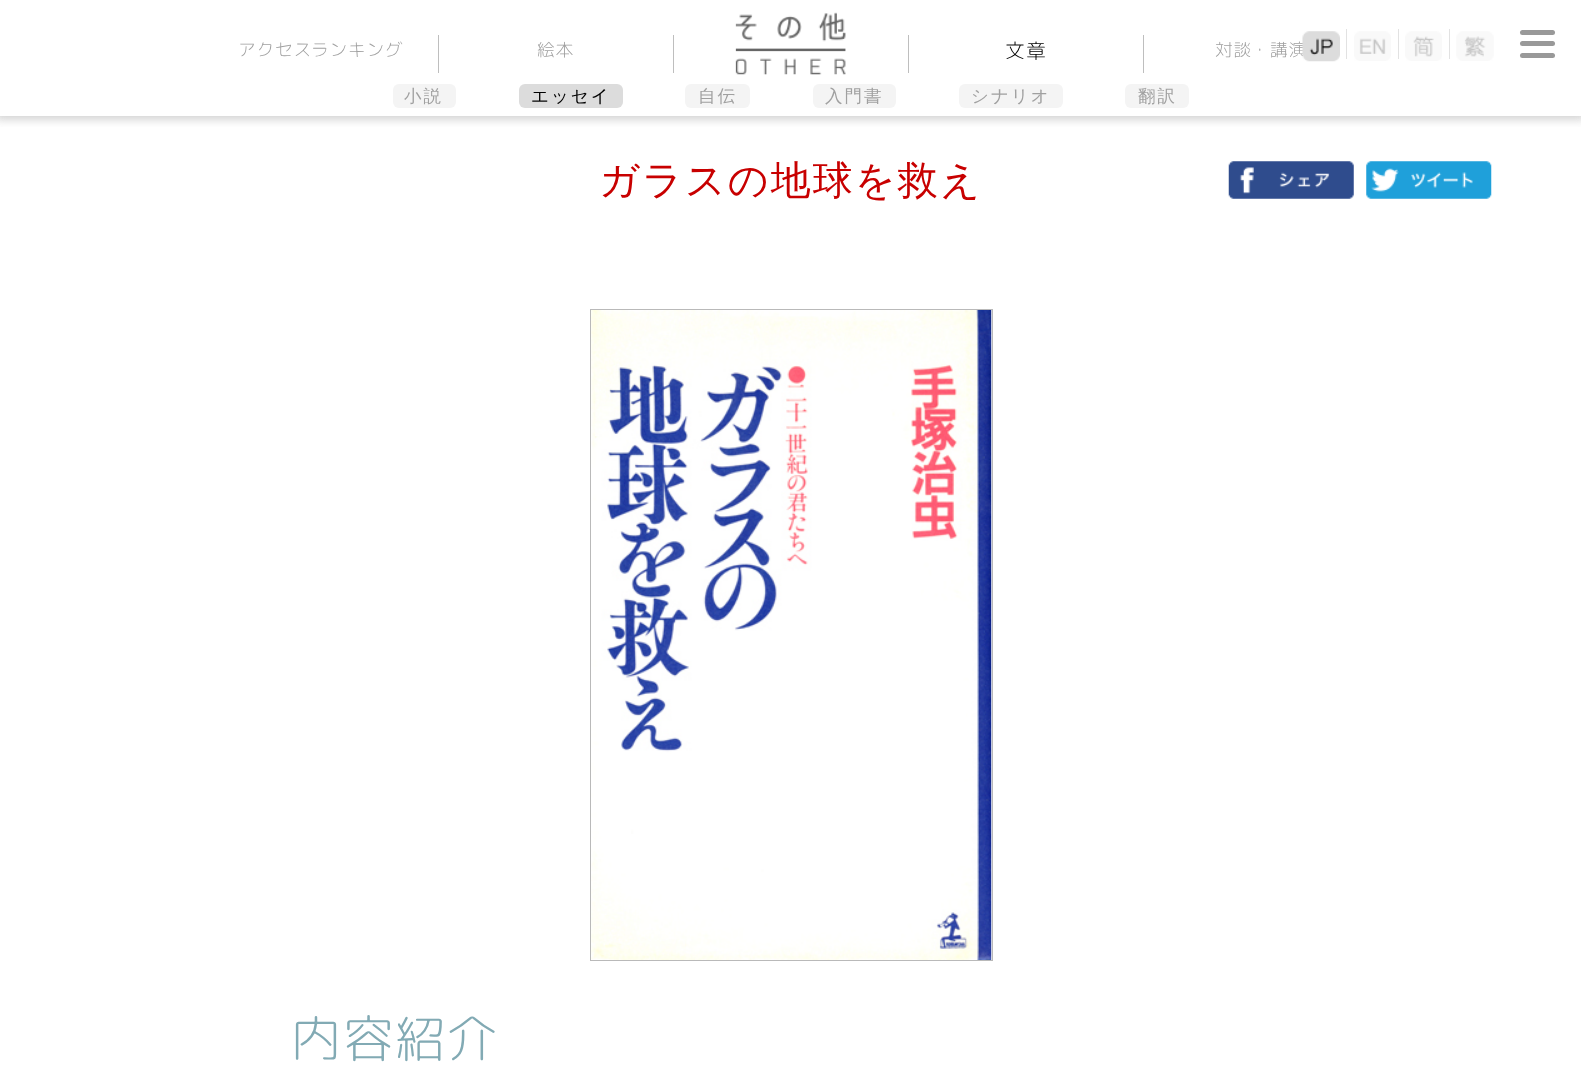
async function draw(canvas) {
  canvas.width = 1581
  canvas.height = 1073
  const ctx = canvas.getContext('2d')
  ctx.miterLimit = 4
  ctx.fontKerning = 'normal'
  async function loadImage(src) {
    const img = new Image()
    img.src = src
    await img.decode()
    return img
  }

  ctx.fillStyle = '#fff'
  ctx.fillRect(0, 0, 1581, 1073)
  ctx.save()
  ctx.beginPath()
  ctx.rect(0, 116, 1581, 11)
  ctx.clip()
  ctx.fillStyle = '#96969666'
  ctx.filter = 'blur(4px)'
  ctx.beginPath()
  ctx.rect(-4, -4, 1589, 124)
  ctx.fill()
  ctx.filter = 'none'
  ctx.restore()
  ctx.drawImage(await loadImage('image0.png'), 735, 12, 111, 63)
  ctx.letterSpacing = '1px'
  ctx.font = '300 17.5px "Rounded Mplus 1c"'
  ctx.fillStyle = '#a0a0a0'
  ctx.save()
  ctx.translate(1270, 56)
  ctx.rotate(0.1 * Math.PI / 180)
  ctx.fillText('講演', 0, 0)
  ctx.restore()
  ctx.drawImage(await loadImage('image1.png'), 1302, 31, 38, 31)
  ctx.fillStyle = '#e2e2e2'
  ctx.fillRect(1346, 29, 1, 30)
  ctx.drawImage(await loadImage('image2.png'), 1354, 31, 37, 30)
  ctx.fillRect(1398, 29, 1, 30)
  ctx.drawImage(await loadImage('image3.png'), 1405, 31, 37, 30)
  ctx.fillRect(1449, 29, 1, 30)
  ctx.drawImage(await loadImage('image4.png'), 1456, 31, 38, 30)
  ctx.fillStyle = '#999'
  ctx.beginPath()
  ctx.roundRect(1520, 41, 35, 5, 2.5)
  ctx.fill()
  ctx.beginPath()
  ctx.roundRect(1520, 30, 35, 5, 2.5)
  ctx.fill()
  ctx.beginPath()
  ctx.roundRect(1520, 53, 35, 5, 2.5)
  ctx.fill()
  ctx.fillStyle = '#bebebe'
  ctx.fillRect(438, 35, 1, 38)
  ctx.fillStyle = '#a0a0a0'
  ctx.save()
  ctx.translate(238, 56)
  ctx.rotate(0.1 * Math.PI / 180)
  ctx.fillText('アクセス', 0, 0)
  ctx.restore()
  ctx.save()
  ctx.translate(311, 56)
  ctx.rotate(0.1 * Math.PI / 180)
  ctx.fillText('ランキング', 0, 0)
  ctx.restore()
  ctx.fillStyle = '#bebebe'
  ctx.fillRect(673, 35, 1, 38)
  ctx.fillStyle = '#a0a0a0'
  ctx.save()
  ctx.translate(537, 56)
  ctx.rotate(0.1 * Math.PI / 180)
  ctx.fillText('絵本', 0, 0)
  ctx.restore()
  ctx.fillStyle = '#bebebe'
  ctx.fillRect(908, 35, 1, 38)
  ctx.fillRect(1143, 35, 1, 38)
  ctx.font = '300 20px "Rounded Mplus 1c"'
  ctx.fillStyle = '#000'
  ctx.save()
  ctx.translate(1005, 58)
  ctx.rotate(0.1 * Math.PI / 180)
  ctx.fillText('文章', 0, 0)
  ctx.restore()
  ctx.font = '300 17.5px "Rounded Mplus 1c"'
  ctx.fillStyle = '#a0a0a0'
  ctx.save()
  ctx.translate(1215, 56)
  ctx.rotate(0.1 * Math.PI / 180)
  ctx.fillText('対談', 0, 0)
  ctx.restore()
  ctx.save()
  ctx.translate(1251, 56)
  ctx.rotate(0.1 * Math.PI / 180)
  ctx.fillText('・', 0, 0)
  ctx.restore()
  ctx.fillStyle = '#f4f4f4'
  ctx.beginPath()
  ctx.roundRect(393, 84, 63, 24, 6)
  ctx.fill()
  ctx.letterSpacing = '2px'
  ctx.font = '500 17.5px WenQuanYi Zen Hei'
  ctx.fillStyle = '#a0a0a0'
  ctx.fillText('小説', 404, 102)
  ctx.fillStyle = '#dcdcdc'
  ctx.beginPath()
  ctx.roundRect(519, 84, 104, 24, 6)
  ctx.fill()
  ctx.fillStyle = '#000'
  ctx.fillText('エッセイ', 531, 102)
  ctx.fillStyle = '#f4f4f4'
  ctx.beginPath()
  ctx.roundRect(685, 84, 65, 24, 6)
  ctx.fill()
  ctx.fillStyle = '#a0a0a0'
  ctx.fillText('自伝', 698, 102)
  ctx.fillStyle = '#f4f4f4'
  ctx.beginPath()
  ctx.roundRect(813, 84, 83, 24, 6)
  ctx.fill()
  ctx.fillStyle = '#a0a0a0'
  ctx.fillText('入門書', 825, 102)
  ctx.fillStyle = '#f4f4f4'
  ctx.beginPath()
  ctx.roundRect(959, 84, 104, 24, 6)
  ctx.fill()
  ctx.fillStyle = '#a0a0a0'
  ctx.fillText('シナリオ', 971, 102)
  ctx.fillStyle = '#f4f4f4'
  ctx.beginPath()
  ctx.roundRect(1125, 84, 64, 24, 6)
  ctx.fill()
  ctx.fillStyle = '#a0a0a0'
  ctx.fillText('翻訳', 1138, 102)
  ctx.font = '500 40px WenQuanYi Zen Hei'
  ctx.fillStyle = '#c80000'
  ctx.fillText('ガラスの地球を救え', 599, 194)
  ctx.drawImage(await loadImage('image5.png'), 1228, 161, 126, 38)
  ctx.drawImage(await loadImage('image6.png'), 1366, 161, 126, 38)
  ctx.strokeStyle = '#b9b9b9'
  ctx.strokeRect(590.5, 309.5, 402, 651)
  ctx.drawImage(await loadImage('image7.png'), 591, 310, 401, 650)
  ctx.font = '300 50px "Rounded Mplus 1c"'
  ctx.fillStyle = '#82aab4'
  ctx.fillText('内容紹介', 291, 1057)
}

draw(document.querySelector('canvas'))
